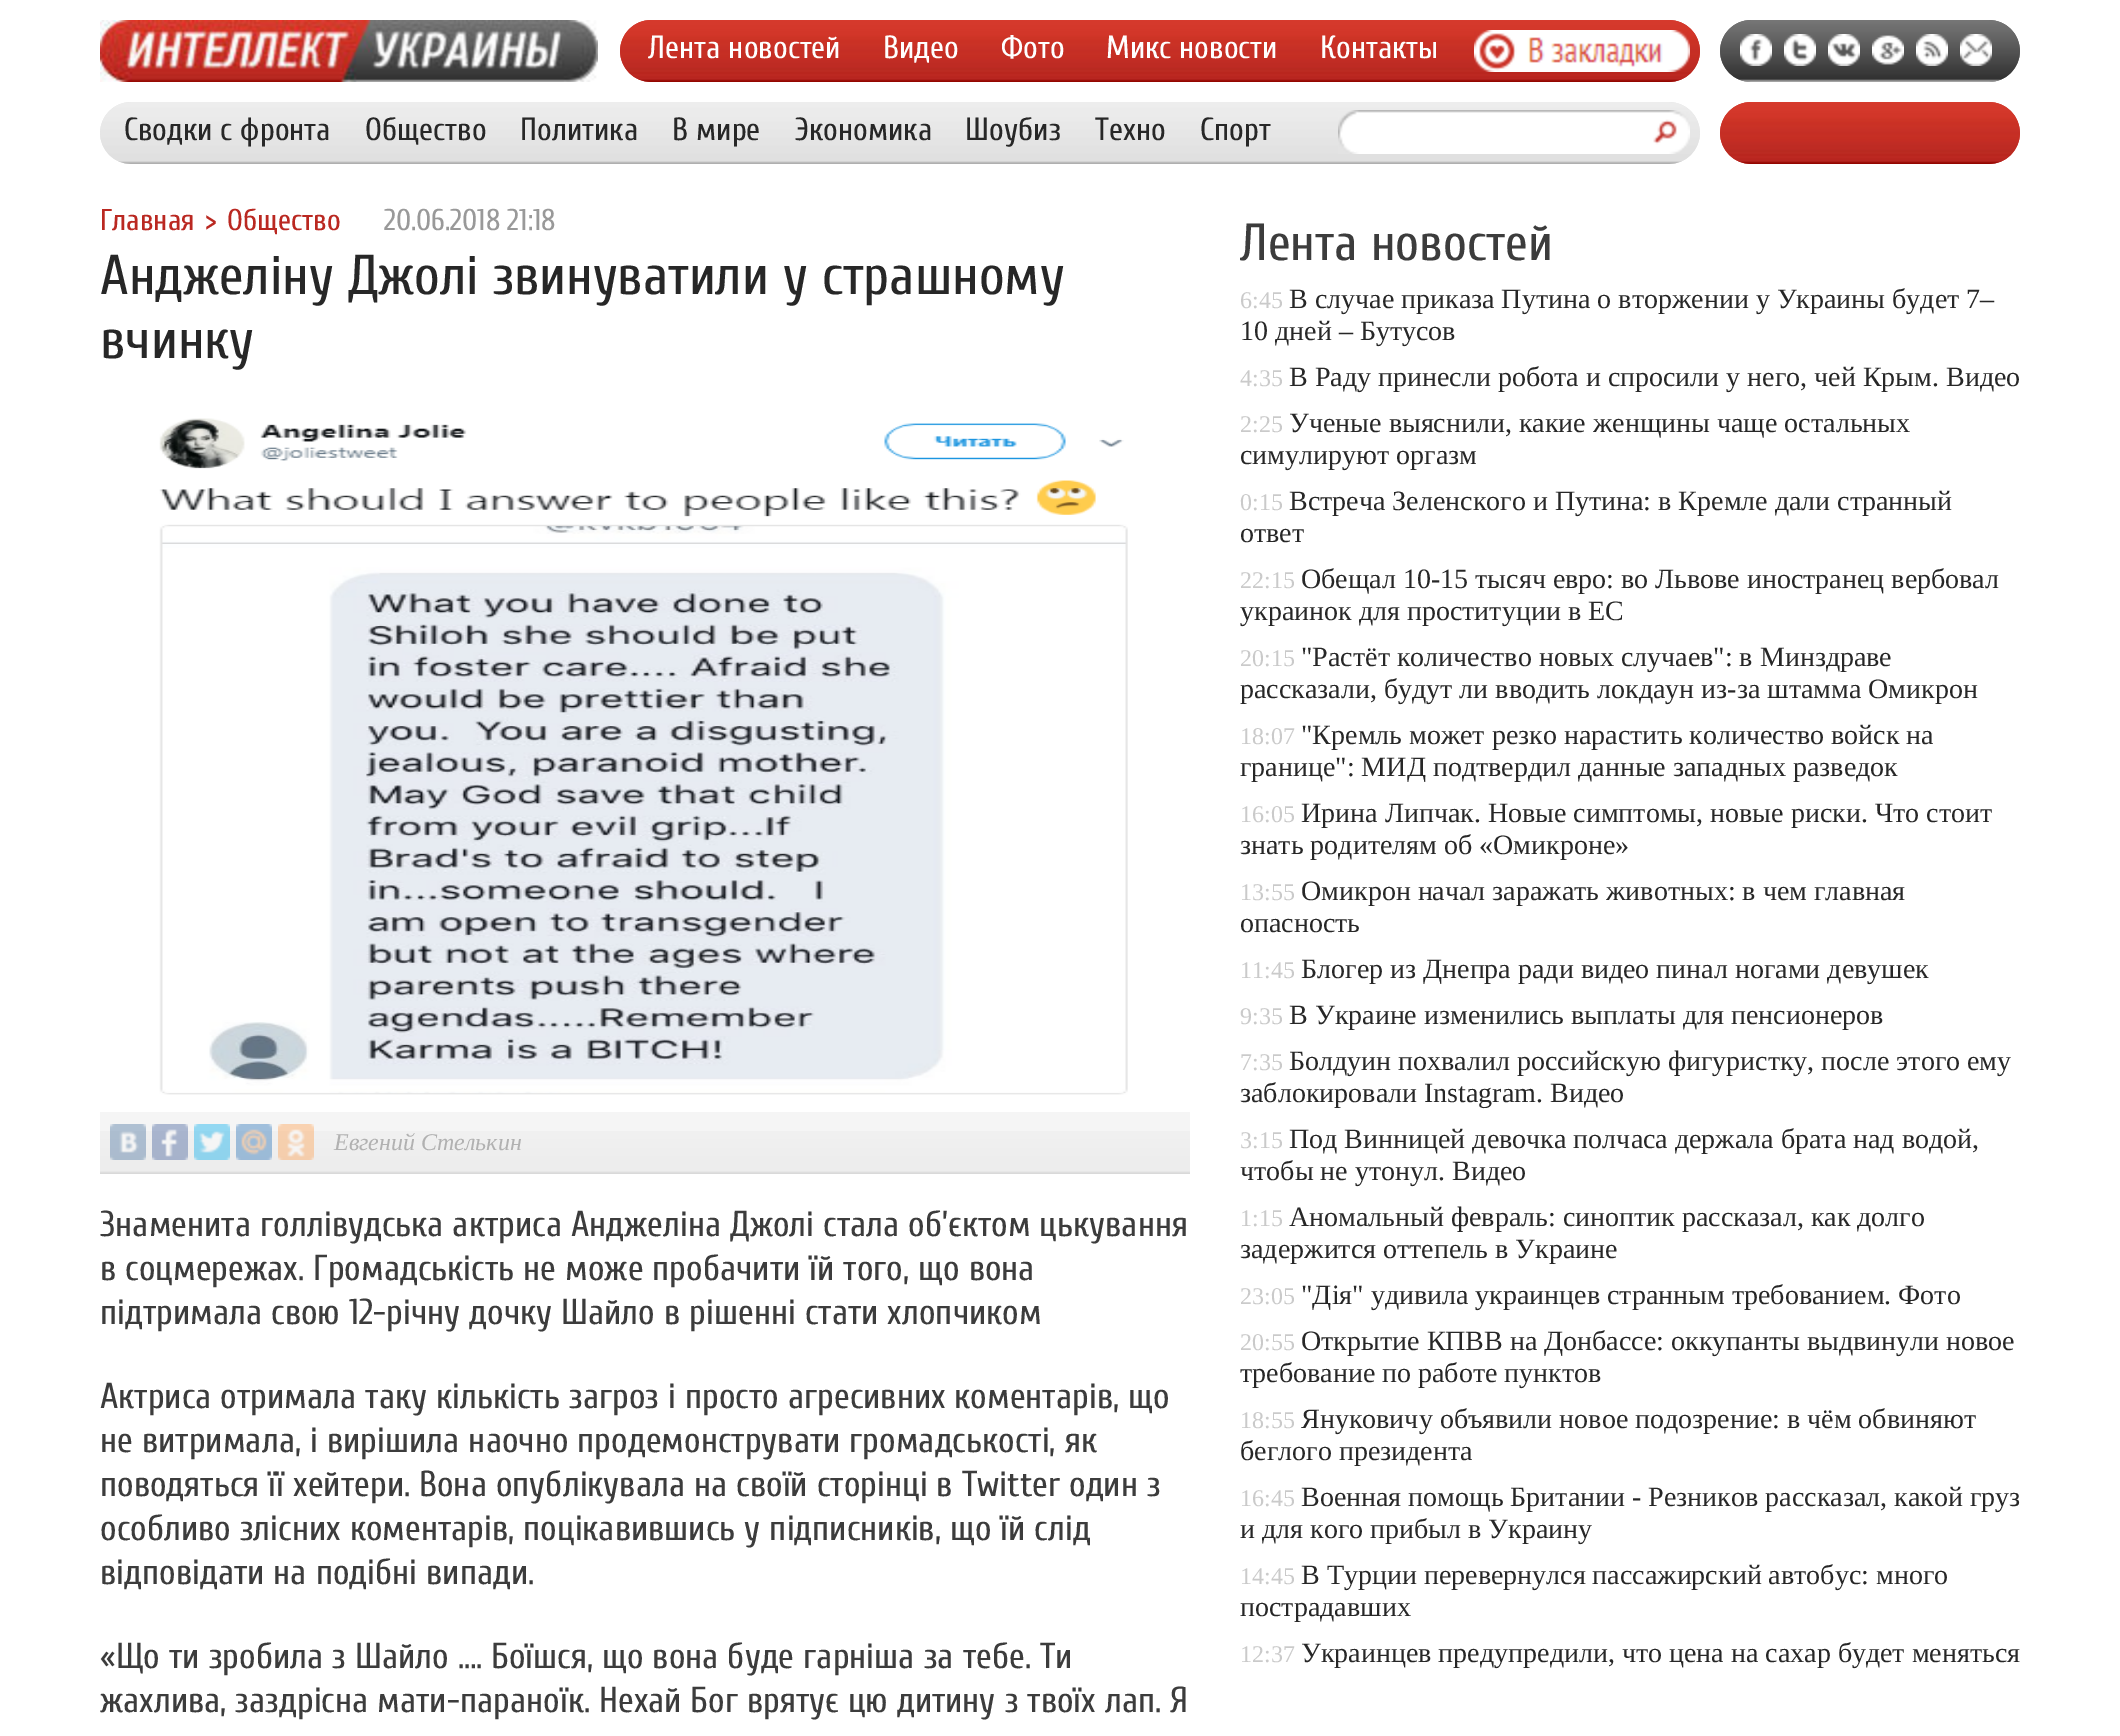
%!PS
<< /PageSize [2120 1736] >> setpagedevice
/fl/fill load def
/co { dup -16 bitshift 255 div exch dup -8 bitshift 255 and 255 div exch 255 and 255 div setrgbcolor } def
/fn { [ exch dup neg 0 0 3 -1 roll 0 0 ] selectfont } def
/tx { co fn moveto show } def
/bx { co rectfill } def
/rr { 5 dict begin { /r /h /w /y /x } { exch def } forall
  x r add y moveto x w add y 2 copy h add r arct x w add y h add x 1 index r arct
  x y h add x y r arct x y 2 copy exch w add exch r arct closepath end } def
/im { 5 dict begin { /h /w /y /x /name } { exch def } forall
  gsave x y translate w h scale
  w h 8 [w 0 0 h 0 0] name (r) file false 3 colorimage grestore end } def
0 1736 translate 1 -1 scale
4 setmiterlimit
0 0 2120 1736 16#FFFFFF bx
(media/1.raw) 100 20 498 62 im
16#C83127 co
620 20 1080 62 31 rr fl
(media/2.raw) 620 20 1080 62 im
(media/3.raw) 1474 30 216 42 im
16#5E5E5E co
1720 20 300 62 31 rr fl
(media/4.raw) 1720 20 300 62 im
(media/5.raw) 1740 34 32 32 im
(media/6.raw) 1784 34 32 32 im
(media/7.raw) 1828 34 32 32 im
(media/8.raw) 1872 35 32 30 im
(media/9.raw) 1916 34 32 32 im
(media/10.raw) 1960 34 32 32 im
16#E6E6E6 co
100 102 1600 62 31 rr fl
(media/11.raw) 100 102 1600 62 im
(media/12.raw) 1338 110 308 44 im
1354 151 2 1 16#FFFFFF bx
(media/13.raw) 1646 110 44 44 im
16#C83127 co
1720 102 300 62 31 rr fl
(media/14.raw) 1720 102 300 62 im
(media/15.raw) 159 418 969 677 im
100 1112 1090 62 16#F5F5F5 bx
(media/16.raw) 100 1131 1090 43 im
(media/17.raw) 110 1124 36 36 im
(media/18.raw) 152 1124 36 36 im
(media/19.raw) 194 1124 36 36 im
(media/20.raw) 236 1124 36 36 im
(media/21.raw) 278 1124 36 36 im
(Лента новостей) 648 58 /Cuprum-Regular 32 16#FFFFFF tx
(Видео) 883 58 /Cuprum-Regular 32 16#FFFFFF tx
(Фото) 1001 58 /Cuprum-Regular 32 16#FFFFFF tx
(Микс новости) 1106 58 /Cuprum-Regular 32 16#FFFFFF tx
(Контакты) 1320 58 /Cuprum-Regular 32 16#FFFFFF tx
(Сводки с фронта) 124 140 /Cuprum-Regular 32 16#272727 tx
(Общество) 365 140 /Cuprum-Regular 32 16#272727 tx
(Политика) 520 140 /Cuprum-Regular 32 16#272727 tx
(В мире) 672 140 /Cuprum-Regular 32 16#272727 tx
(Экономика) 795 140 /Cuprum-Regular 32 16#272727 tx
(Шоубиз) 965 140 /Cuprum-Regular 32 16#272727 tx
(Техно) 1095 140 /Cuprum-Regular 32 16#272727 tx
(Спорт) 1200 140 /Cuprum-Regular 32 16#272727 tx
(Главная) 100 230 /Cuprum-Regular 30 16#BA2821 tx
(>) 205 230 /Cuprum-Regular 30 16#BA2821 tx
(Общество) 227 230 /Cuprum-Regular 30 16#BA2821 tx
(20.06.2018 21:18) 384 230 /Cuprum-Regular 30 16#999999 tx
(Анджеліну Джолі звинуватили у страшному) 100 294 /Cuprum-Regular 56 16#272727 tx
(вчинку) 100 358 /Cuprum-Regular 56 16#272727 tx
(Евгений Стелькин) 334 1150 /LiberationSerif-Italic 24 16#B1B1B1 tx
(Знаменита голлівудська актриса Анджеліна Джолі стала об’єктом цькування) 100 1236 /Cuprum-Regular 36 16#3C3C3C tx
(в соцмережах. Громадськість не може пробачити їй того, що вона) 100 1280 /Cuprum-Regular 36 16#3C3C3C tx
(підтримала свою 12-річну дочку Шайло в рішенні стати хлопчиком) 100 1324 /Cuprum-Regular 36 16#3C3C3C tx
(Актриса отримала таку кількість загроз і просто агресивних коментарів, що) 100 1408 /Cuprum-Regular 36 16#3C3C3C tx
(не витримала, і вирішила наочно продемонструвати громадськості, як) 100 1452 /Cuprum-Regular 36 16#3C3C3C tx
(поводяться її хейтери. Вона опублікувала на своїй сторінці в Twitter один з) 100 1496 /Cuprum-Regular 36 16#3C3C3C tx
(особливо злісних коментарів, поцікавившись у підписників, що їй слід) 100 1540 /Cuprum-Regular 36 16#3C3C3C tx
(відповідати на подібні випади.) 100 1584 /Cuprum-Regular 36 16#3C3C3C tx
(«Що ти зробила з Шайло …. Боїшся, що вона буде гарніша за тебе. Ти) 100 1668 /Cuprum-Regular 36 16#3C3C3C tx
(жахлива, заздрісна мати-параноїк. Нехай Бог врятує цю дитину з твоїх лап. Я) 100 1712 /Cuprum-Regular 36 16#3C3C3C tx
(Лента новостей) 1240 260 /Cuprum-Regular 52 16#3C3C3C tx
(6:45) 1240 308 /LiberationSerif-Regular 24 16#CACACA tx
(В случае приказа Путина о вторжении у Украины будет 7–) 1289 308 /LiberationSerif-Regular 28 16#272727 tx
(10 дней – Бутусов) 1240 340 /LiberationSerif-Regular 28 16#272727 tx
(4:35) 1240 386 /LiberationSerif-Regular 24 16#CACACA tx
(В Раду принесли робота и спросили у него, чей Крым. Видео) 1289 386 /LiberationSerif-Regular 28 16#272727 tx
(2:25) 1240 432 /LiberationSerif-Regular 24 16#CACACA tx
(Ученые выяснили, какие женщины чаще остальных) 1289 432 /LiberationSerif-Regular 28 16#272727 tx
(симулируют оргазм) 1240 464 /LiberationSerif-Regular 28 16#272727 tx
(0:15) 1240 510 /LiberationSerif-Regular 24 16#CACACA tx
(Встреча Зеленского и Путина: в Кремле дали странный) 1289 510 /LiberationSerif-Regular 28 16#272727 tx
(ответ) 1240 542 /LiberationSerif-Regular 28 16#272727 tx
(22:15) 1240 588 /LiberationSerif-Regular 24 16#CACACA tx
(Обещал 10-15 тысяч евро: во Львове иностранец вербовал) 1301 588 /LiberationSerif-Regular 28 16#272727 tx
(украинок для проституции в ЕС) 1240 620 /LiberationSerif-Regular 28 16#272727 tx
(20:15) 1240 666 /LiberationSerif-Regular 24 16#CACACA tx
("Растёт количество новых случаев": в Минздраве) 1301 666 /LiberationSerif-Regular 28 16#272727 tx
(рассказали, будут ли вводить локдаун из-за штамма Омикрон) 1240 698 /LiberationSerif-Regular 28 16#272727 tx
(18:07) 1240 744 /LiberationSerif-Regular 24 16#CACACA tx
("Кремль может резко нарастить количество войск на) 1301 744 /LiberationSerif-Regular 28 16#272727 tx
(границе": МИД подтвердил данные западных разведок) 1240 776 /LiberationSerif-Regular 28 16#272727 tx
(16:05) 1240 822 /LiberationSerif-Regular 24 16#CACACA tx
(Ирина Липчак. Новые симптомы, новые риски. Что стоит) 1301 822 /LiberationSerif-Regular 28 16#272727 tx
(знать родителям об «Омикроне») 1240 854 /LiberationSerif-Regular 28 16#272727 tx
(13:55) 1240 900 /LiberationSerif-Regular 24 16#CACACA tx
(Омикрон начал заражать животных: в чем главная) 1301 900 /LiberationSerif-Regular 28 16#272727 tx
(опасность) 1240 932 /LiberationSerif-Regular 28 16#272727 tx
(11:45) 1240 978 /LiberationSerif-Regular 24 16#CACACA tx
(Блогер из Днепра ради видео пинал ногами девушек) 1301 978 /LiberationSerif-Regular 28 16#272727 tx
(9:35) 1240 1024 /LiberationSerif-Regular 24 16#CACACA tx
(В Украине изменились выплаты для пенсионеров) 1289 1024 /LiberationSerif-Regular 28 16#272727 tx
(7:35) 1240 1070 /LiberationSerif-Regular 24 16#CACACA tx
(Болдуин похвалил российскую фигуристку, после этого ему) 1289 1070 /LiberationSerif-Regular 28 16#272727 tx
(заблокировали Instagram. Видео) 1240 1102 /LiberationSerif-Regular 28 16#272727 tx
(3:15) 1240 1148 /LiberationSerif-Regular 24 16#CACACA tx
(Под Винницей девочка полчаса держала брата над водой,) 1289 1148 /LiberationSerif-Regular 28 16#272727 tx
(чтобы не утонул. Видео) 1240 1180 /LiberationSerif-Regular 28 16#272727 tx
(1:15) 1240 1226 /LiberationSerif-Regular 24 16#CACACA tx
(Аномальный февраль: синоптик рассказал, как долго) 1289 1226 /LiberationSerif-Regular 28 16#272727 tx
(задержится оттепель в Украине) 1240 1258 /LiberationSerif-Regular 28 16#272727 tx
(23:05) 1240 1304 /LiberationSerif-Regular 24 16#CACACA tx
("Дія" удивила украинцев странным требованием. Фото) 1301 1304 /LiberationSerif-Regular 28 16#272727 tx
(20:55) 1240 1350 /LiberationSerif-Regular 24 16#CACACA tx
(Открытие КПВВ на Донбассе: оккупанты выдвинули новое) 1301 1350 /LiberationSerif-Regular 28 16#272727 tx
(требование по работе пунктов) 1240 1382 /LiberationSerif-Regular 28 16#272727 tx
(18:55) 1240 1428 /LiberationSerif-Regular 24 16#CACACA tx
(Януковичу объявили новое подозрение: в чём обвиняют) 1301 1428 /LiberationSerif-Regular 28 16#272727 tx
(беглого президента) 1240 1460 /LiberationSerif-Regular 28 16#272727 tx
(16:45) 1240 1506 /LiberationSerif-Regular 24 16#CACACA tx
(Военная помощь Британии - Резников рассказал, какой груз) 1301 1506 /LiberationSerif-Regular 28 16#272727 tx
(и для кого прибыл в Украину) 1240 1538 /LiberationSerif-Regular 28 16#272727 tx
(14:45) 1240 1584 /LiberationSerif-Regular 24 16#CACACA tx
(В Турции перевернулся пассажирский автобус: много) 1301 1584 /LiberationSerif-Regular 28 16#272727 tx
(пострадавших) 1240 1616 /LiberationSerif-Regular 28 16#272727 tx
(12:37) 1240 1662 /LiberationSerif-Regular 24 16#CACACA tx
(Украинцев предупредили, что цена на сахар будет меняться) 1301 1662 /LiberationSerif-Regular 28 16#272727 tx
showpage
